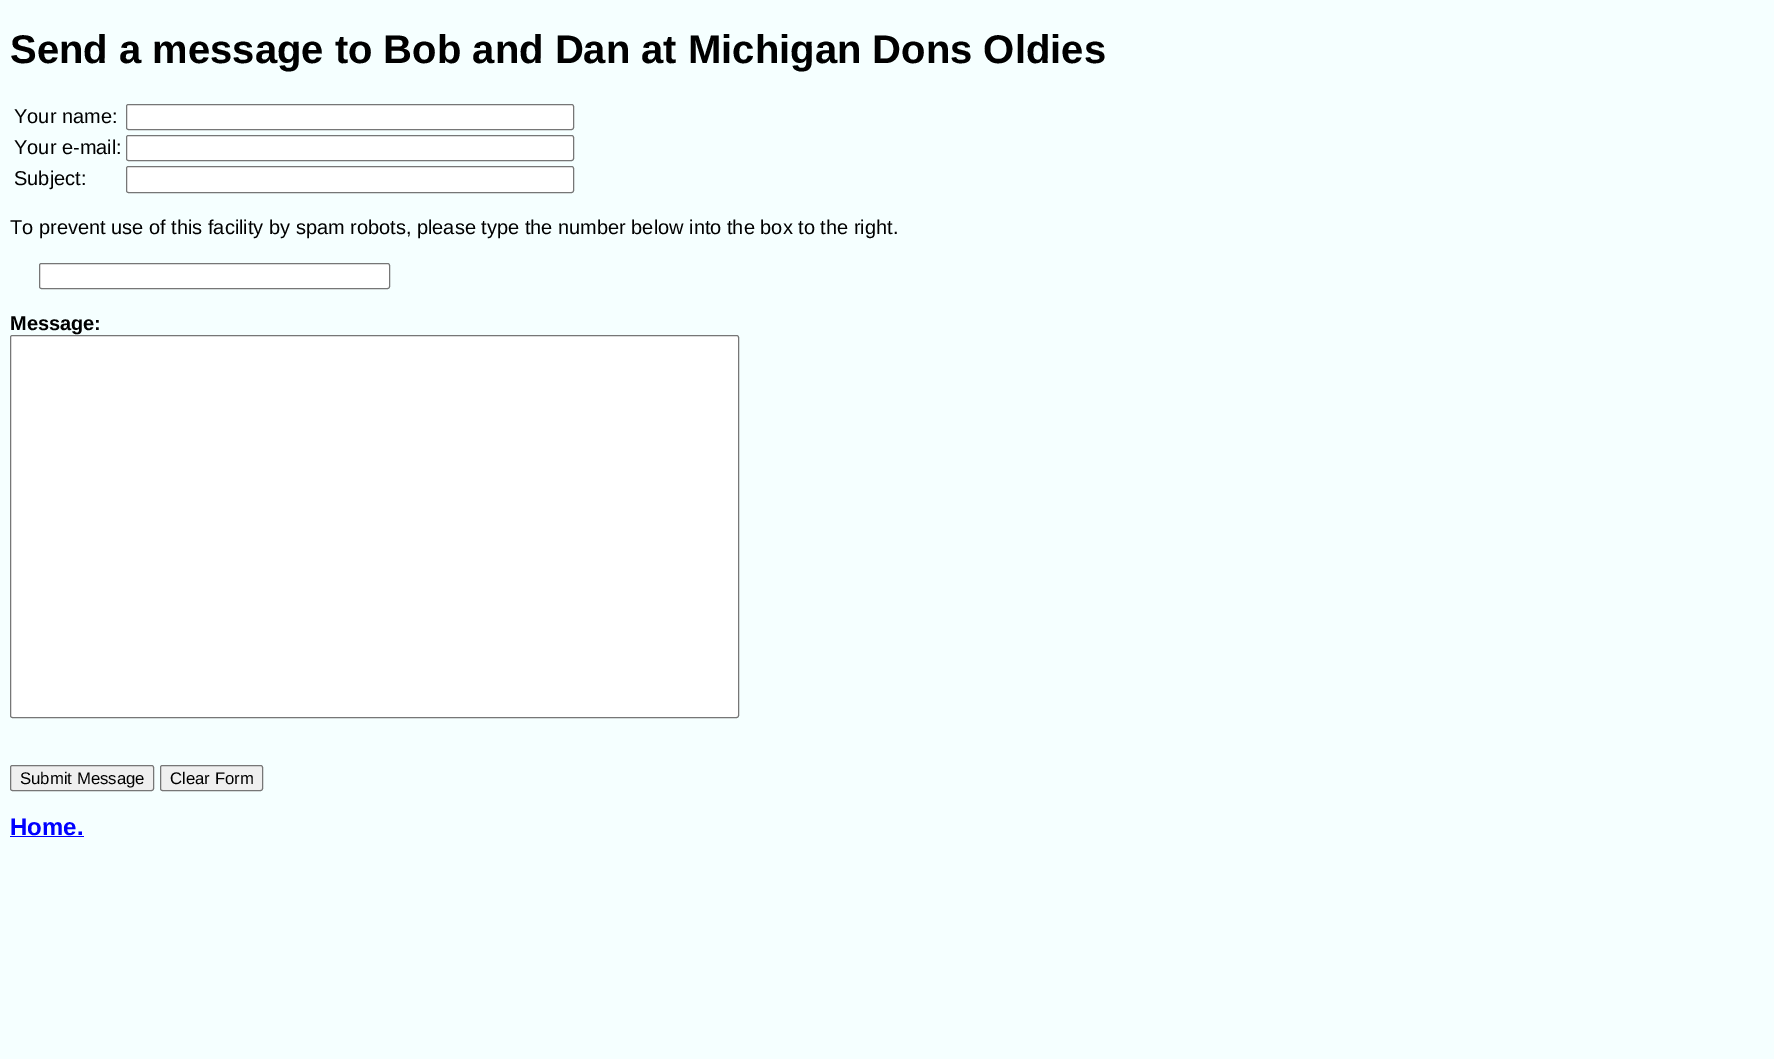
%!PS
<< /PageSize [1774 1059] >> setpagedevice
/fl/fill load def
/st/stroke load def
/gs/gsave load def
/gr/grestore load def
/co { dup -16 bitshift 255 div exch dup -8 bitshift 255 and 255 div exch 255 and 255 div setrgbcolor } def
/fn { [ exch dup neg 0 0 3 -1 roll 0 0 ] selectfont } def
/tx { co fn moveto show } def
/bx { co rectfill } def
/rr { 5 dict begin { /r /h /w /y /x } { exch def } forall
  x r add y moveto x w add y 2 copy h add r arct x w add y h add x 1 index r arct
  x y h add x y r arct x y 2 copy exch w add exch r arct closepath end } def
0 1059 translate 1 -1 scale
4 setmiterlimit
0 0 1774 1059 16#F5FFFF bx
16#FFFFFF co
126.5 104.5 447 25 2 rr gs fl gr
16#767676 co
st
16#FFFFFF co
126.5 135.5 447 25 2 rr gs fl gr
16#767676 co
st
16#FFFFFF co
126.5 166.5 447 26 2 rr gs fl gr
16#767676 co
st
16#FFFFFF co
39.5 263.5 350 25 2 rr gs fl gr
16#767676 co
st
16#FFFFFF co
10.5 335.5 728 382 2 rr gs fl gr
16#767676 co
st
16#EFEFEF co
10.5 765.5 143 25 2 rr gs fl gr
16#767676 co
st
16#EFEFEF co
160.5 765.5 102 25 2 rr gs fl gr
16#767676 co
st
10 836 74 1 16#0000FF bx
(Send a message to Bob and Dan at Michigan Dons Oldies) 10 63 /LiberationSans-Bold 40 16#000000 tx
(Your name:) 14 123 /LiberationSans-Regular 20 16#000000 tx
(Your e-mail:) 14 154 /LiberationSans-Regular 20 16#000000 tx
(Subject:) 14 185 /LiberationSans-Regular 20 16#000000 tx
(To prevent use of this facility by spam robots, please type the number below into the box to the right.) 10 234 /LiberationSans-Regular 20 16#000000 tx
(Message:) 10 330 /LiberationSans-Bold 20 16#000000 tx
(Submit Message) 20 784 /LiberationSans-Regular 16.75 16#000000 tx
(Clear Form) 170 784 /LiberationSans-Regular 16.75 16#000000 tx
(Home.) 10 835 /LiberationSans-Bold 24 16#0000FF tx
showpage
